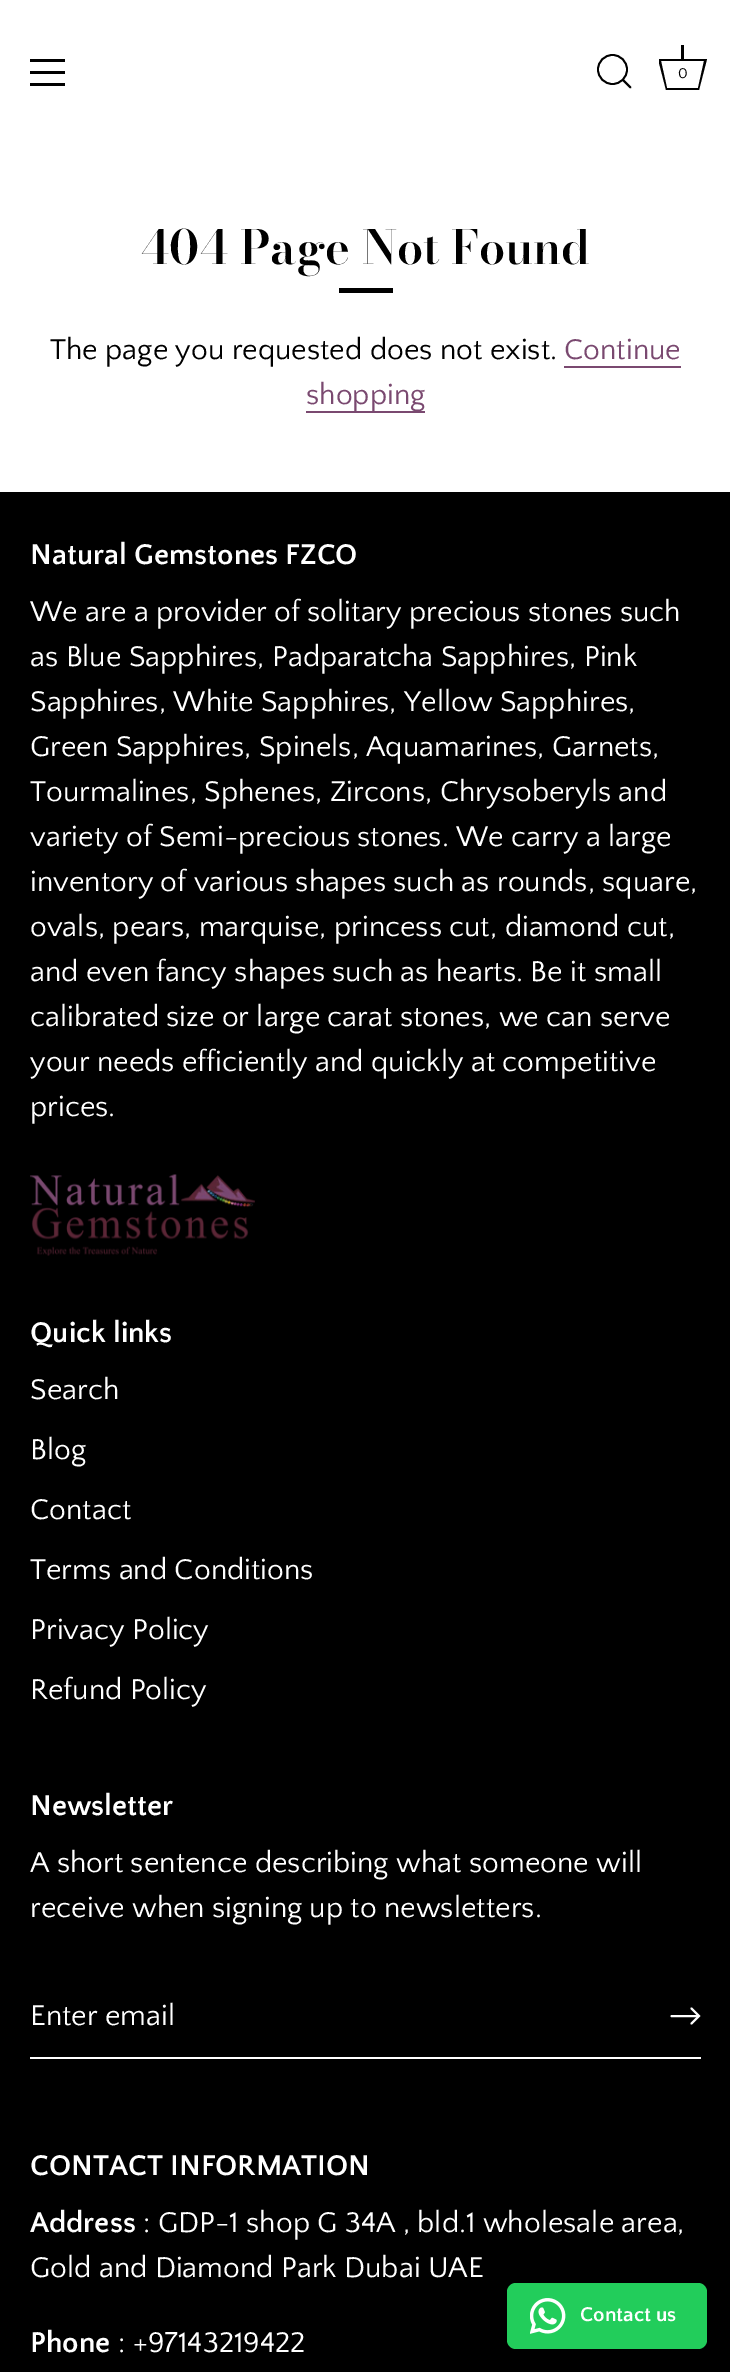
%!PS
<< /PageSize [730 2372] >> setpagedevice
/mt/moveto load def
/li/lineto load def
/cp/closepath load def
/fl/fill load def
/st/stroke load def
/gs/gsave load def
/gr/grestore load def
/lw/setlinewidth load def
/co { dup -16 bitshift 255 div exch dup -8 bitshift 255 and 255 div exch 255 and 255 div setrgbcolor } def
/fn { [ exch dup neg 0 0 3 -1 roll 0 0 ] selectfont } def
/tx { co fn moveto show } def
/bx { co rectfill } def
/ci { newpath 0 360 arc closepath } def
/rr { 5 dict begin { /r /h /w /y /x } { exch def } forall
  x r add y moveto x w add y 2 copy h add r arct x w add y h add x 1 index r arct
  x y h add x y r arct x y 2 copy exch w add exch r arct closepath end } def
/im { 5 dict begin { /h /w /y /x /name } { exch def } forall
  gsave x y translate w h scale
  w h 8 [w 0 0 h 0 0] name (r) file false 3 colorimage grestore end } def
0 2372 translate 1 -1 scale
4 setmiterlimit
0 0 730 2372 16#FFFFFF bx
30 59 35 3 16#000000 bx
30 71 35 3 16#000000 bx
30 83 35 3 16#000000 bx
1.8 lw
612.5 69.5 14.5 ci st
1 setlinecap
1 setlinejoin
630.5 87.5 mt 623 80 li st
681 45 3 14 16#000000 bx
gs
659 44 48 48 rectclip
704 61 mt 698 88 li 667 88 li 661 61 li 704 61 li 707 59 mt 658 59 li 666 90 li 699 90 li cp fl
gr
339 288 54 5 16#000000 bx
564 366 117 2 16#7A4970 bx
306 411 119 2 16#7A4970 bx
0 492 730 1880 16#000000 bx
(media/1.raw) 30 1174 225 82 im
30 2057 671 2 16#FFFFFF bx
1.9 lw
0 setlinejoin
691.5 2023.5 mt 699 2016 li 691.5 2008.5 li st
1 setlinejoin
698 2016 mt 671.5 2016 li st
16#22CD5B co
507 2283 200 66 9 rr fl
(media/2.raw) 530 2298 36 36 im
(0) 678 78 /QuattrocentoSans-Regular 15 16#000000 tx
(404 Page Not Found) 140 264 /BodoniModa-SemiBold 46.75 16#000000 tx
(The page you requested does not exist.) 50 359 /QuattrocentoSans-Regular 30 16#000000 tx
(Continue) 564 359 /QuattrocentoSans-Regular 30 16#7A4970 tx
(shopping) 306 404 /QuattrocentoSans-Regular 30 16#7A4970 tx
(Natural Gemstones FZCO) 30 564 /QuattrocentoSans-Bold 30 16#FFFFFF tx
(We are a provider of solitary precious stones such) 30 621 /QuattrocentoSans-Regular 30 16#FFFFFF tx
(as Blue Sapphires, Padparatcha Sapphires, Pink) 30 666 /QuattrocentoSans-Regular 30 16#FFFFFF tx
(Sapphires, White Sapphires, Yellow Sapphires,) 30 711 /QuattrocentoSans-Regular 30 16#FFFFFF tx
(Green Sapphires, Spinels, Aquamarines, Garnets,) 30 756 /QuattrocentoSans-Regular 30 16#FFFFFF tx
(Tourmalines, Sphenes, Zircons, Chrysoberyls and) 30 801 /QuattrocentoSans-Regular 30 16#FFFFFF tx
(variety of Semi-precious stones. We carry a large) 30 846 /QuattrocentoSans-Regular 30 16#FFFFFF tx
(inventory of various shapes such as rounds, square,) 30 891 /QuattrocentoSans-Regular 30 16#FFFFFF tx
(ovals, pears, marquise, princess cut, diamond cut,) 30 936 /QuattrocentoSans-Regular 30 16#FFFFFF tx
(and even fancy shapes such as hearts. Be it small) 30 981 /QuattrocentoSans-Regular 30 16#FFFFFF tx
(calibrated size or large carat stones, we can serve) 30 1026 /QuattrocentoSans-Regular 30 16#FFFFFF tx
(your needs efficiently and quickly at competitive) 30 1071 /QuattrocentoSans-Regular 30 16#FFFFFF tx
(prices.) 30 1116 /QuattrocentoSans-Regular 30 16#FFFFFF tx
(Quick links) 30 1342 /QuattrocentoSans-Bold 30 16#FFFFFF tx
(Search) 30 1399 /QuattrocentoSans-Regular 30 16#FFFFFF tx
(Blog) 30 1459 /QuattrocentoSans-Regular 30 16#FFFFFF tx
(Contact) 30 1519 /QuattrocentoSans-Regular 30 16#FFFFFF tx
(Terms and Conditions) 30 1579 /QuattrocentoSans-Regular 30 16#FFFFFF tx
(Privacy Policy) 30 1639 /QuattrocentoSans-Regular 30 16#FFFFFF tx
(Refund Policy) 30 1699 /QuattrocentoSans-Regular 30 16#FFFFFF tx
(Newsletter) 30 1815 /QuattrocentoSans-Bold 30 16#FFFFFF tx
(A short sentence describing what someone will) 30 1872 /QuattrocentoSans-Regular 30 16#FFFFFF tx
(receive when signing up to newsletters.) 30 1917 /QuattrocentoSans-Regular 30 16#FFFFFF tx
(Enter email) 30 2025 /QuattrocentoSans-Regular 30 16#FFFFFF tx
(CONTACT INFORMATION) 30 2175 /QuattrocentoSans-Bold 30 16#FFFFFF tx
(Address) 30 2232 /QuattrocentoSans-Bold 30 16#FFFFFF tx
(: GDP-1 shop G 34A , bld.1 wholesale area,) 143 2232 /QuattrocentoSans-Regular 30 16#FFFFFF tx
(Gold and Diamond Park Dubai UAE) 30 2277 /QuattrocentoSans-Regular 30 16#FFFFFF tx
(Phone) 30 2352 /QuattrocentoSans-Bold 30 16#FFFFFF tx
(: +97143219422) 118 2352 /QuattrocentoSans-Regular 30 16#FFFFFF tx
(Contact us) 580 2321 /QuattrocentoSans-Bold 21 16#FFFFFF tx
showpage
